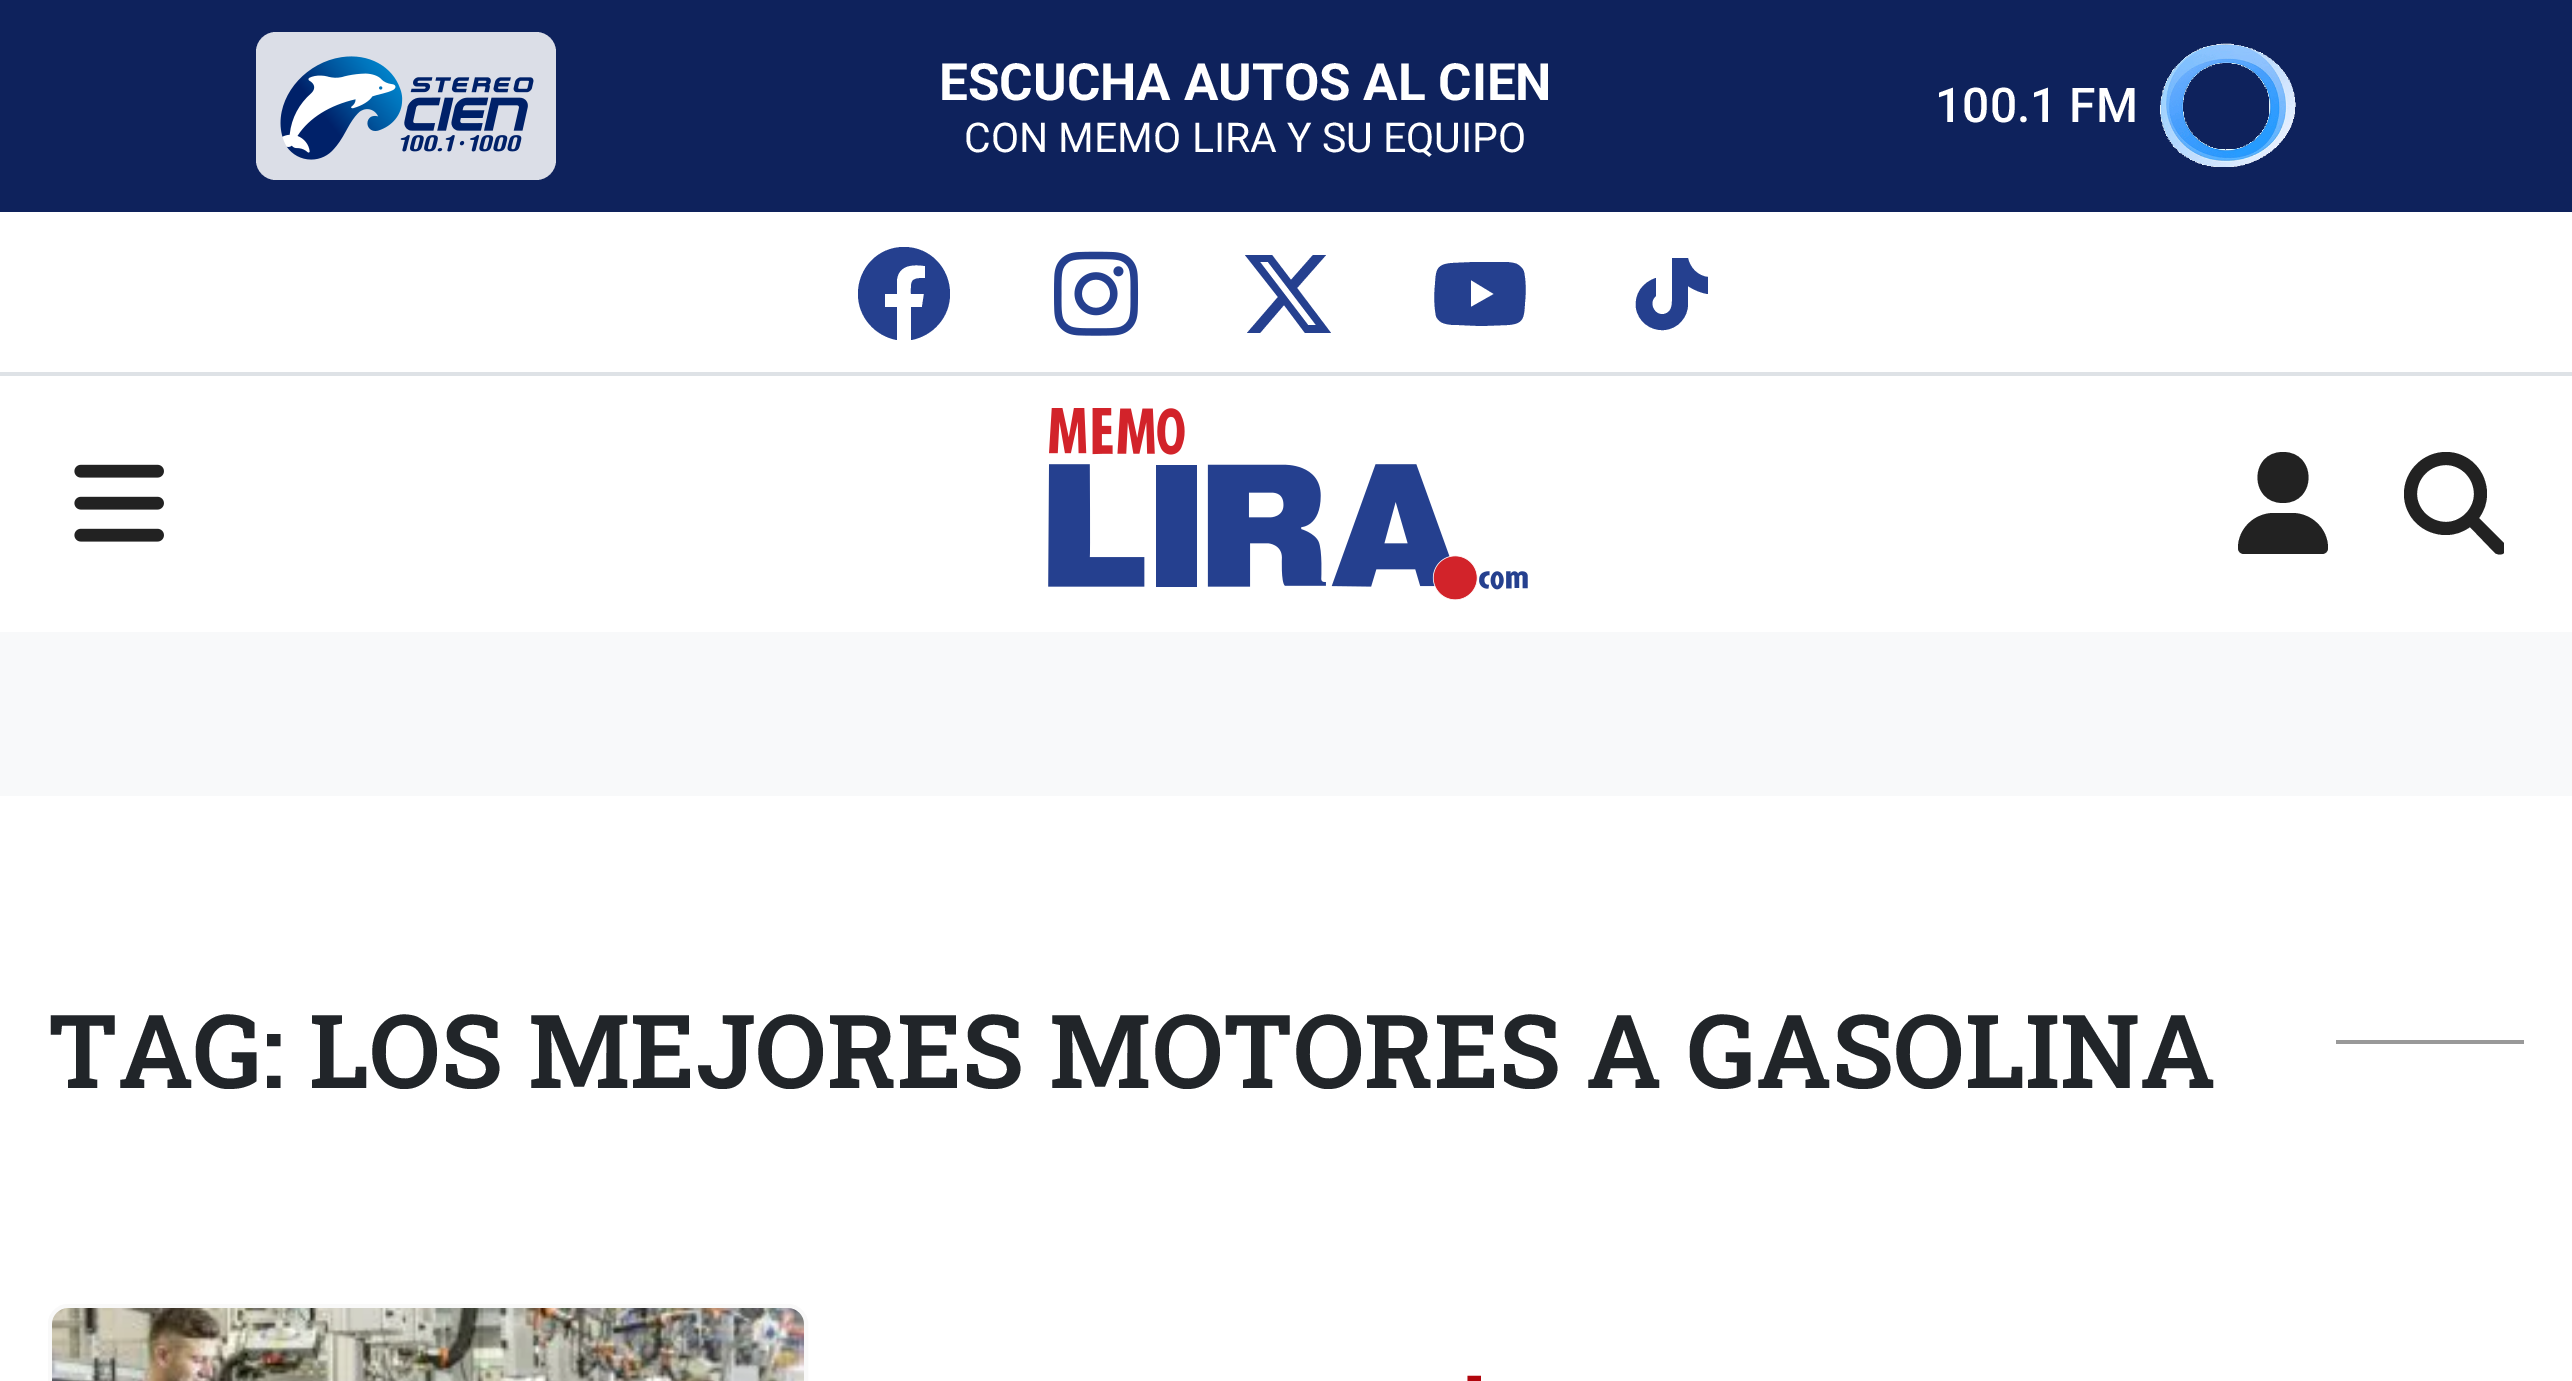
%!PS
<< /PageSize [2572 1381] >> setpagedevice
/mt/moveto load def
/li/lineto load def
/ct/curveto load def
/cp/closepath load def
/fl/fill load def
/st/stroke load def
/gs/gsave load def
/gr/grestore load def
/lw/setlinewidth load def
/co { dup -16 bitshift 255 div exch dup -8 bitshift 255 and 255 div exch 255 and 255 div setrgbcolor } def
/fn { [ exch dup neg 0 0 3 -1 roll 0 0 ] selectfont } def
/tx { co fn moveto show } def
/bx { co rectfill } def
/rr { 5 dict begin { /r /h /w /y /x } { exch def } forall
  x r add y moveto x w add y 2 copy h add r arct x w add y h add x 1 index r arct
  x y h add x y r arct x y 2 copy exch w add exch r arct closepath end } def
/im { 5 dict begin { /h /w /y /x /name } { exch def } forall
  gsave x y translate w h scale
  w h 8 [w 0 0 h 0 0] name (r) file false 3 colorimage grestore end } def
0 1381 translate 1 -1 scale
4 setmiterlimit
0 0 2572 1381 16#FFFFFF bx
0 0 2572 212 16#0E225C bx
16#DBDEE7 co
256 32 300 148 20 rr fl
(media/1.raw) 280 56 254 104 im
(media/2.raw) 2160 43 136 124 im
0 372 2572 4 16#DEE2E6 bx
16#25408F co
950 294 mt 950 268 930 247 904 247 ct 878 247 858 268 858 294 ct 858 317 875 336 897 340 ct 897 307 li 885 307 li 885 294 li 897 294 li 897 279 li 899 265 913 264 925 266 ct 925 278 li 910 278 911 281 911 294 ct 924 294 li 922 307 li 911 307 li 911 340 li 933 336 950 317 950 294 ct cp fl
(media/3.raw) 1054 251 85 85 im
1313 255 mt 1326 255 li 1297 288 li 1331 333 li 1305 333 li 1284 305 li 1260 333 li 1247 333 li 1278 297 li 1245 255 li 1272 255 li 1291 280 li cp 1308 325 mt 1316 325 li 1268 262 li 1260 262 li cp fl
1524 272 mt 1523 268 1520 266 1517 264 ct 1512 262 1506 262 1501 262 ct 1475 262 li 1453 263 li 1436 264 1436 270 1435 285 ct 1434 295 1434 306 1436 316 ct 1437 319 1440 322 1443 323 ct 1448 325 1454 325 1459 325 ct 1481 326 li 1507 325 li 1524 324 1524 318 1525 302 ct 1526 292 1526 281 1524 272 ct cp 1471 307 mt 1471 280 li 1494 294 li cp fl
1708 277 mt 1708 294 li 1701 293 1694 290 1688 286 ct 1688 304 li 1688 317 1678 329 1664 330 ct 1650 331 1638 321 1636 308 ct 1634 294 1643 282 1656 278 ct 1656 296 li 1648 302 1654 316 1664 314 ct 1673 312 1672 303 1672 296 ct 1672 258 li 1688 258 li 1690 268 1698 276 1708 277 ct cp fl
(media/4.raw) 74 464 90 78 im
(media/5.raw) 1048 408 480 192 im
16#222222 co
2283 503 mt 2317 503 2317 452 2283 452 ct 2249 452 2249 503 2283 503 ct cp 2274 513 mt 2254 513 2238 529 2238 548 ct 2238 552 2241 554 2244 554 ct 2322 554 li 2325 554 2328 552 2328 548 ct 2328 529 2312 513 2292 513 ct cp fl
gs
2404 452 100 104 rectclip
2487 494 mt 2487 503 2484 511 2479 518 ct 2504 543 li 2507 546 2507 550 2504 553 ct 2502 555 2498 555 2495 553 ct 2470 527 li 2463 532 2455 535 2446 535 ct 2423 535 2404 517 2404 494 ct 2404 471 2423 452 2446 452 ct 2469 452 2487 471 2487 494 ct cp 2446 522 mt 2461 522 2474 509 2474 494 ct 2474 478 2461 465 2446 465 ct 2430 465 2417 478 2417 494 ct 2417 509 2430 522 2446 522 ct cp fl
gr
0 632 2572 164 16#F8F9FA bx
2336 1040 188 4 16#999999 bx
16#F9F9F9 co
4 lw
50 1306 756 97 18 rr st
(media/6.raw) 52 1308 752 73 im
(ESCUCHA AUTOS AL CIEN) 939 100 /Roboto-Bold 51.25 16#FFFFFF tx
(CON MEMO LIRA Y SU EQUIPO) 964 152 /Roboto-Regular 41 16#FFFFFF tx
(100.1 FM) 1935 122 /Roboto-Medium 48 16#FFFFFF tx
(TAG: LOS MEJORES MOTORES A GASOLINA) 48 1088 /RobotoSlab-SemiBold 102.4 16#212529 tx
(-) 1464 1394 /RobotoSlab-SemiBold 51.25 16#B1060D tx
showpage
